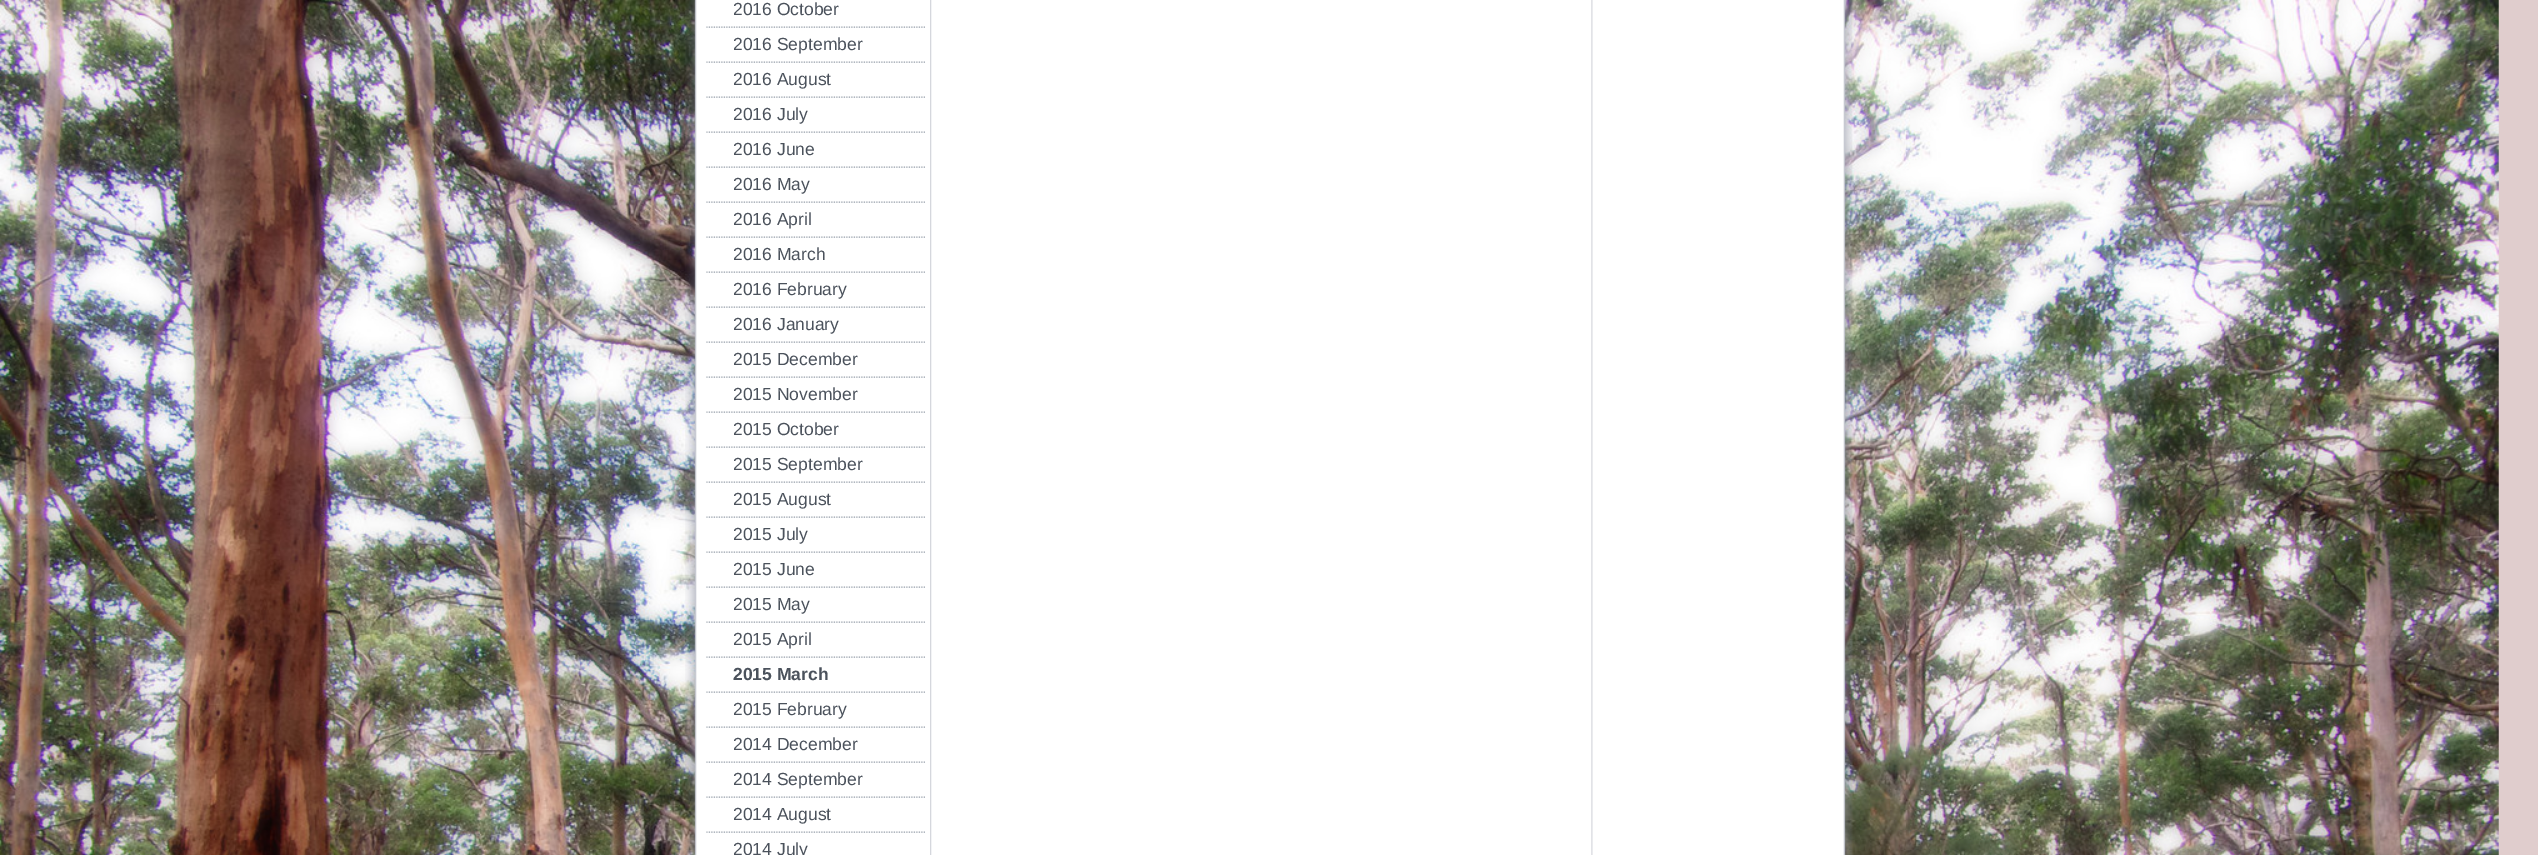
%!PS
<< /PageSize [2538 855] >> setpagedevice
/co { dup -16 bitshift 255 div exch dup -8 bitshift 255 and 255 div exch 255 and 255 div setrgbcolor } def
/fn { [ exch dup neg 0 0 3 -1 roll 0 0 ] selectfont } def
/tx { co fn moveto show } def
/bx { co rectfill } def
/im { 5 dict begin { /h /w /y /x /name } { exch def } forall
  gsave x y translate w h scale
  w h 8 [w 0 0 h 0 0] name (r) file false 3 colorimage grestore end } def
0 855 translate 1 -1 scale
4 setmiterlimit
0 0 2538 855 16#E0CDCD bx
(media/1.raw) 0 0 2499 855 im
(media/2.raw) 685 0 1168 855 im
(media/3.raw) 930 0 663 855 im
(media/4.raw) 706 26 219 2 im
(media/4.raw) 706 61 219 2 im
(media/4.raw) 706 96 219 2 im
(media/4.raw) 706 131 219 2 im
(media/4.raw) 706 166 219 2 im
(media/4.raw) 706 201 219 2 im
(media/4.raw) 706 236 219 2 im
(media/4.raw) 706 271 219 2 im
(media/4.raw) 706 306 219 2 im
(media/4.raw) 706 341 219 2 im
(media/4.raw) 706 376 219 2 im
(media/4.raw) 706 411 219 2 im
(media/4.raw) 706 446 219 2 im
(media/4.raw) 706 481 219 2 im
(media/4.raw) 706 516 219 2 im
(media/4.raw) 706 551 219 2 im
(media/4.raw) 706 586 219 2 im
(media/4.raw) 706 621 219 2 im
(media/4.raw) 706 656 219 2 im
(media/4.raw) 706 691 219 2 im
(media/4.raw) 706 726 219 2 im
(media/4.raw) 706 761 219 2 im
(media/4.raw) 706 796 219 2 im
(media/4.raw) 706 831 219 2 im
(2016 October) 733 15 /LiberationSans-Regular 17.5 16#4B525C tx
(2016 September) 733 50 /LiberationSans-Regular 17.5 16#4B525C tx
(2016 August) 733 85 /LiberationSans-Regular 17.5 16#4B525C tx
(2016 July) 733 120 /LiberationSans-Regular 17.5 16#4B525C tx
(2016 June) 733 155 /LiberationSans-Regular 17.5 16#4B525C tx
(2016 May) 733 190 /LiberationSans-Regular 17.5 16#4B525C tx
(2016 April) 733 225 /LiberationSans-Regular 17.5 16#4B525C tx
(2016 March) 733 260 /LiberationSans-Regular 17.5 16#4B525C tx
(2016 February) 733 295 /LiberationSans-Regular 17.5 16#4B525C tx
(2016 January) 733 330 /LiberationSans-Regular 17.5 16#4B525C tx
(2015 December) 733 365 /LiberationSans-Regular 17.5 16#4B525C tx
(2015 November) 733 400 /LiberationSans-Regular 17.5 16#4B525C tx
(2015 October) 733 435 /LiberationSans-Regular 17.5 16#4B525C tx
(2015 September) 733 470 /LiberationSans-Regular 17.5 16#4B525C tx
(2015 August) 733 505 /LiberationSans-Regular 17.5 16#4B525C tx
(2015 July) 733 540 /LiberationSans-Regular 17.5 16#4B525C tx
(2015 June) 733 575 /LiberationSans-Regular 17.5 16#4B525C tx
(2015 May) 733 610 /LiberationSans-Regular 17.5 16#4B525C tx
(2015 April) 733 645 /LiberationSans-Regular 17.5 16#4B525C tx
(2015 March) 733 680 /LiberationSans-Bold 17.5 16#4B525C tx
(2015 February) 733 715 /LiberationSans-Regular 17.5 16#4B525C tx
(2014 December) 733 750 /LiberationSans-Regular 17.5 16#4B525C tx
(2014 September) 733 785 /LiberationSans-Regular 17.5 16#4B525C tx
(2014 August) 733 820 /LiberationSans-Regular 17.5 16#4B525C tx
(2014 July) 733 855 /LiberationSans-Regular 17.5 16#4B525C tx
showpage
